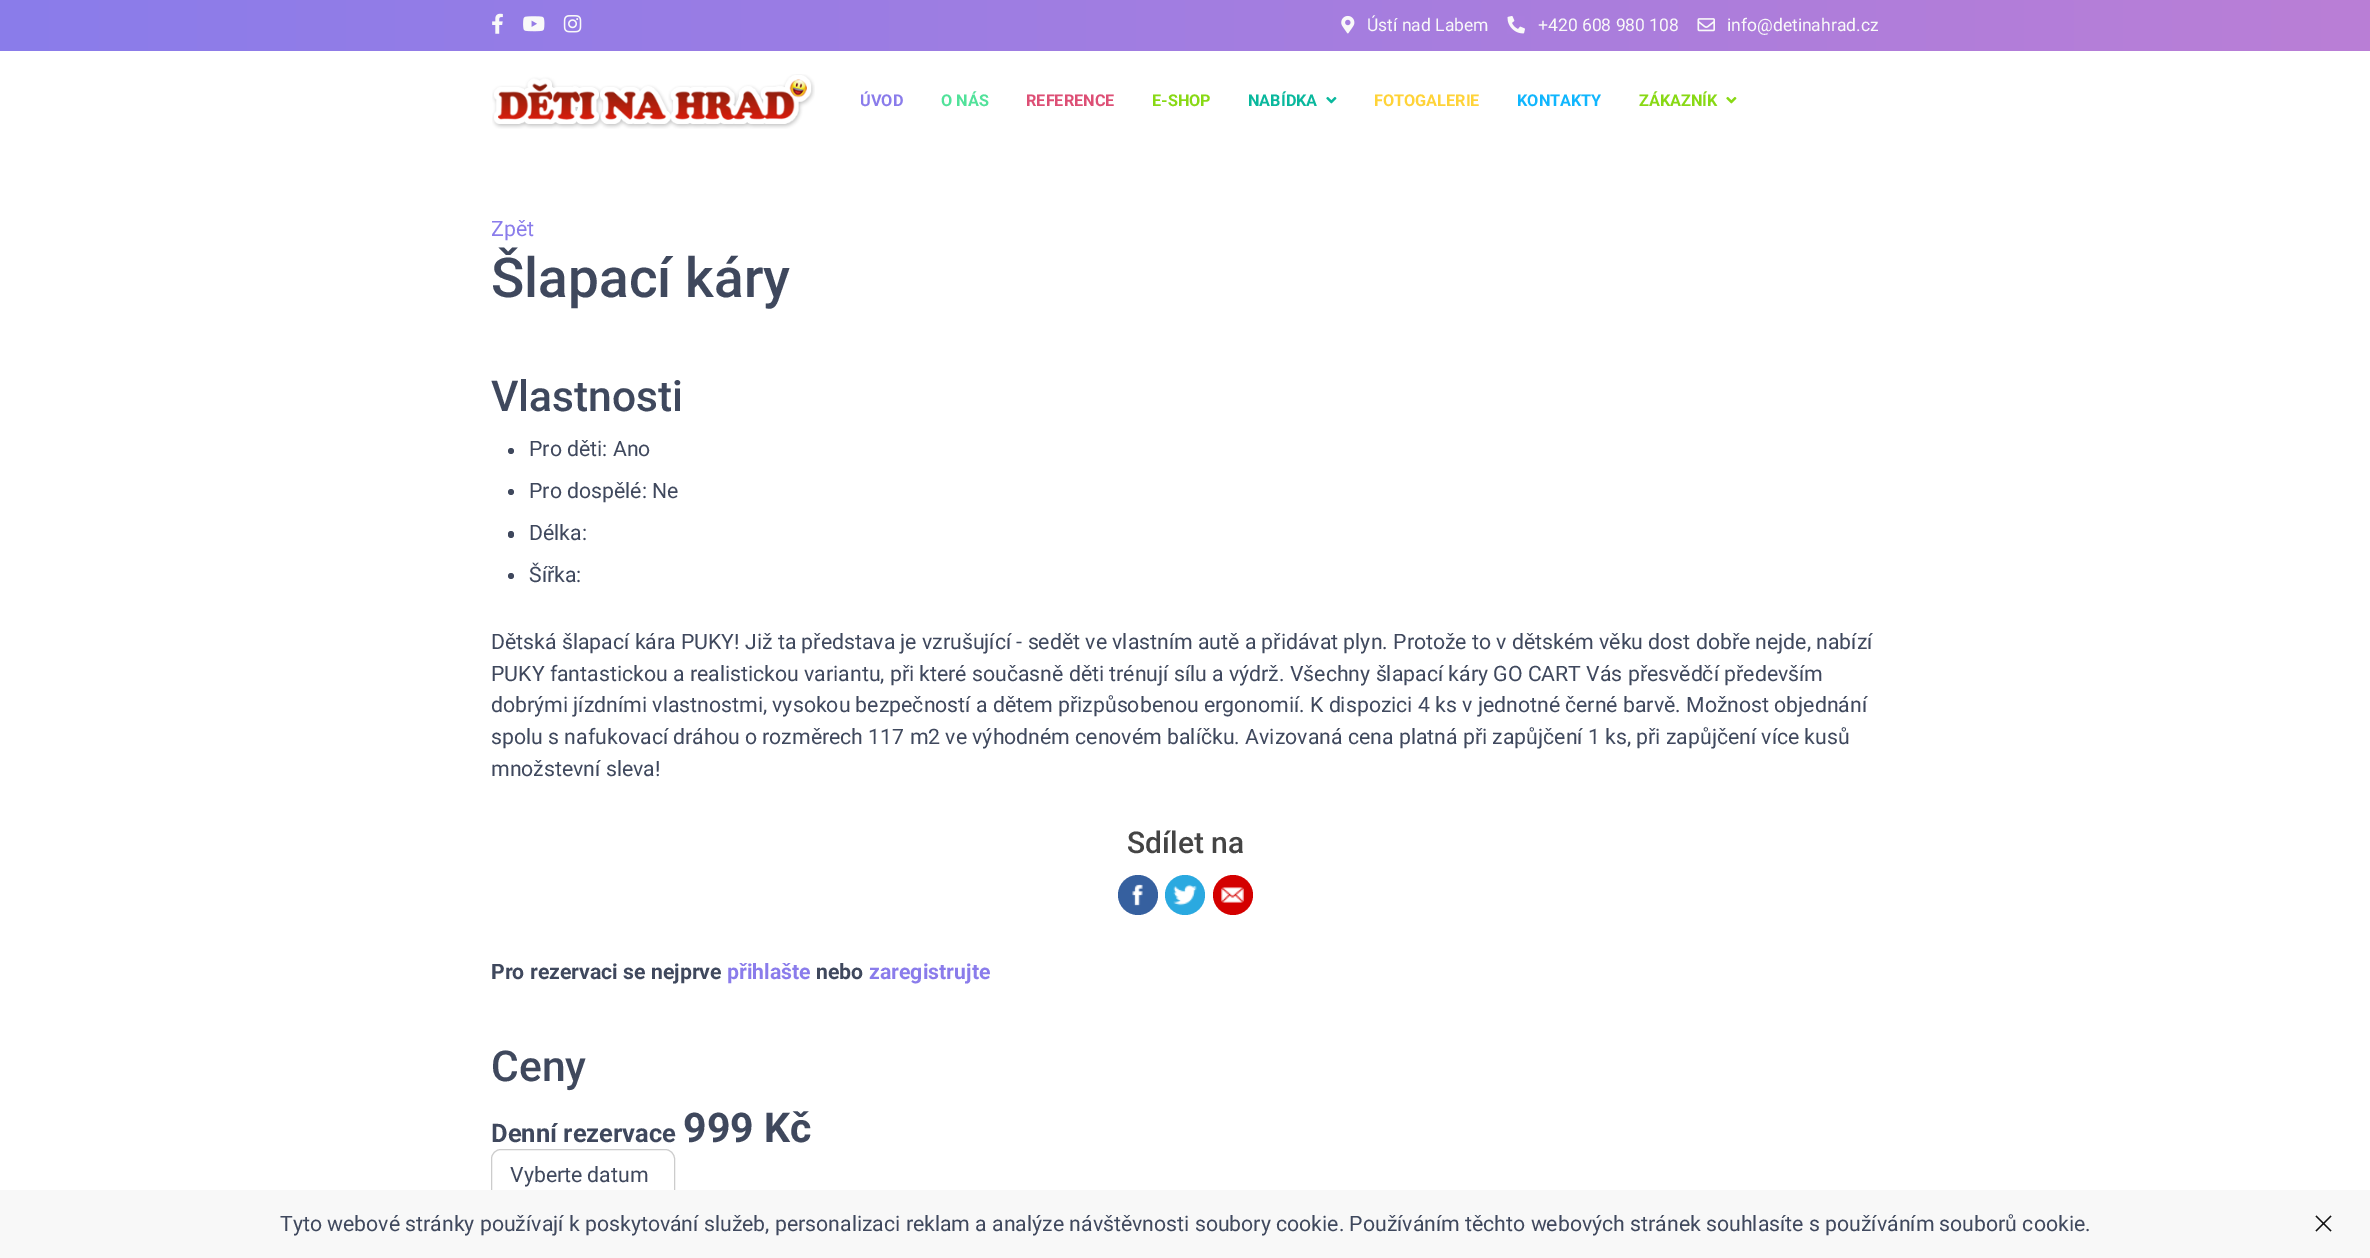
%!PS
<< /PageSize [2370 1258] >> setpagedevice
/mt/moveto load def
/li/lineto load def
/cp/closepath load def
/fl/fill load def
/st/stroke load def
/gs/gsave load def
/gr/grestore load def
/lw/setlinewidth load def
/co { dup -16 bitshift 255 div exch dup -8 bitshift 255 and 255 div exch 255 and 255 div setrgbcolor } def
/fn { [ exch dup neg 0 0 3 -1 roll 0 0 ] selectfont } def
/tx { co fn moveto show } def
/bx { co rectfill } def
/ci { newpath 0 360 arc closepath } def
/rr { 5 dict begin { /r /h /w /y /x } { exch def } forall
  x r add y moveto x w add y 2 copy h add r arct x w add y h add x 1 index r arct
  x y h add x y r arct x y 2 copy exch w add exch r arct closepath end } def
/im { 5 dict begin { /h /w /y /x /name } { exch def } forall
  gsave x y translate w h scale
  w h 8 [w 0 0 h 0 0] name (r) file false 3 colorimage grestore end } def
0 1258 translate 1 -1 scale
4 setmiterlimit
0 0 2370 1258 16#FFFFFF bx
gs 0 0 mt 2370 0 li 2370 51 li 0 51 li cp clip newpath
<< /ShadingType 2 /ColorSpace /DeviceRGB /Coords [0 26 2370 26] /Extend [true true] /Function << /FunctionType 2 /Domain [0 1] /C0 [.541 .486 .922] /C1 [.729 .494 .839] /N 1 >> >> shfill gr
(media/1.raw) 492 13 11 21 im
(media/2.raw) 523 16 22 16 im
(media/3.raw) 563 15 19 18 im
(media/4.raw) 1341 15 14 19 im
(media/5.raw) 1507 16 18 18 im
(media/6.raw) 1697 18 18 14 im
(media/7.raw) 492 74 323 55 im
(media/8.raw) 1326 96 11 8 im
(media/9.raw) 1726 96 11 8 im
16#3F485D co
511 451 3 ci fl
511 492 3 ci fl
508 531 6 7 3 rr fl
511 576 3 ci fl
16#36609F co
1138 895 20 ci fl
(media/10.raw) 1132 884 11 22 im
16#2AA9E0 co
1185 895 20 ci fl
(media/11.raw) 1173 884 24 22 im
16#D40000 co
1233 895 20 ci fl
(media/12.raw) 1221 887 23 16 im
16#CCCCCC co
491.5 1149.5 183 51 9.5 rr st
0 1190 2370 68 16#F8F8F8 bx
16#111111 co
1.4 lw
2316 1216 mt 2331 1231 li 2331 1216 mt 2316 1231 li st
(Ústí nad Labem) 1367 31 /Roboto-Regular 17.5 16#F9F9F9 tx
(+420 608 980 108) 1538 31 /Roboto-Regular 17.5 16#F9F9F9 tx
(info@detinahrad.cz) 1727 31 /Roboto-Regular 17.5 16#F9F9F9 tx
(ÚVOD) 860 106 /Roboto-Bold 16.25 16#8A7CEB tx
(O NÁS) 941 106 /Roboto-Bold 16.25 16#51E29A tx
(REFERENCE) 1026 106 /Roboto-Bold 16.25 16#DD4F75 tx
(E-SHOP) 1152 106 /Roboto-Bold 16.25 16#88D914 tx
(NABÍDKA) 1248 106 /Roboto-Bold 16.25 16#09B89D tx
(FOTOGALERIE) 1374 106 /Roboto-Bold 16.25 16#FFD338 tx
(KONTAKTY) 1517 106 /Roboto-Bold 16.25 16#10B6FE tx
(ZÁKAZNÍK) 1639 106 /Roboto-Bold 16.25 16#88D914 tx
(Zpět) 491 236 /Roboto-Regular 21.25 16#8A7CEB tx
(Šlapací káry) 491 297 /Roboto-Medium 55 16#3F485D tx
(Vlastnosti) 491 411 /Roboto-Medium 42.5 16#3F485D tx
(Pro děti: Ano) 529 456 /Roboto-Regular 21.25 16#3F485D tx
(Pro dospělé: Ne) 529 498 /Roboto-Regular 21.25 16#3F485D tx
(Délka:) 529 540 /Roboto-Regular 21.25 16#3F485D tx
(Šířka:) 529 582 /Roboto-Regular 21.25 16#3F485D tx
(Dětská šlapací kára PUKY! Již ta představa je vzrušující - sedět ve vlastním autě a přidávat plyn. Protože to v dětském věku dost dobře nejde, nabízí) 491 649 /Roboto-Regular 21.25 16#3F485D tx
(PUKY fantastickou a realistickou variantu, při které současně děti trénují sílu a výdrž. Všechny šlapací káry GO CART Vás přesvědčí především) 491 681 /Roboto-Regular 21.25 16#3F485D tx
(dobrými jízdními vlastnostmi, vysokou bezpečností a dětem přizpůsobenou ergonomií. K dispozici 4 ks v jednotné černé barvě. Možnost objednání) 491 712 /Roboto-Regular 21.25 16#3F485D tx
(spolu s nafukovací dráhou o rozměrech 117 m2 ve výhodném cenovém balíčku. Avizovaná cena platná při zapůjčení 1 ks, při zapůjčení více kusů) 491 744 /Roboto-Regular 21.25 16#3F485D tx
(množstevní sleva!) 491 776 /Roboto-Regular 21.25 16#3F485D tx
(Sdílet na) 1127 853 /Roboto-Medium 30 16#444444 tx
(Pro rezervaci se nejprve) 491 979 /Roboto-Bold 21.25 16#3F485D tx
(přihlašte) 727 979 /Roboto-Bold 21.25 16#8A7CEB tx
(nebo) 816 979 /Roboto-Bold 21.25 16#3F485D tx
(zaregistrujte) 869 979 /Roboto-Bold 21.25 16#8A7CEB tx
(Ceny) 491 1081 /Roboto-Medium 42.5 16#3F485D tx
(Denní rezervace) 491 1142 /Roboto-Bold 25.5 16#3F485D tx
(999 Kč) 683 1142 /Roboto-Bold 41 16#3F485D tx
(Vyberte datum) 510 1182 /Roboto-Regular 21.25 16#3F485D tx
(Tyto webové stránky používají k poskytování služeb, personalizaci reklam a analýze návštěvnosti soubory cookie. Používáním těchto webových stránek souhlasíte s používáním souborů cookie.) 280 1231 /Roboto-Regular 21.25 16#3F485D tx
showpage
